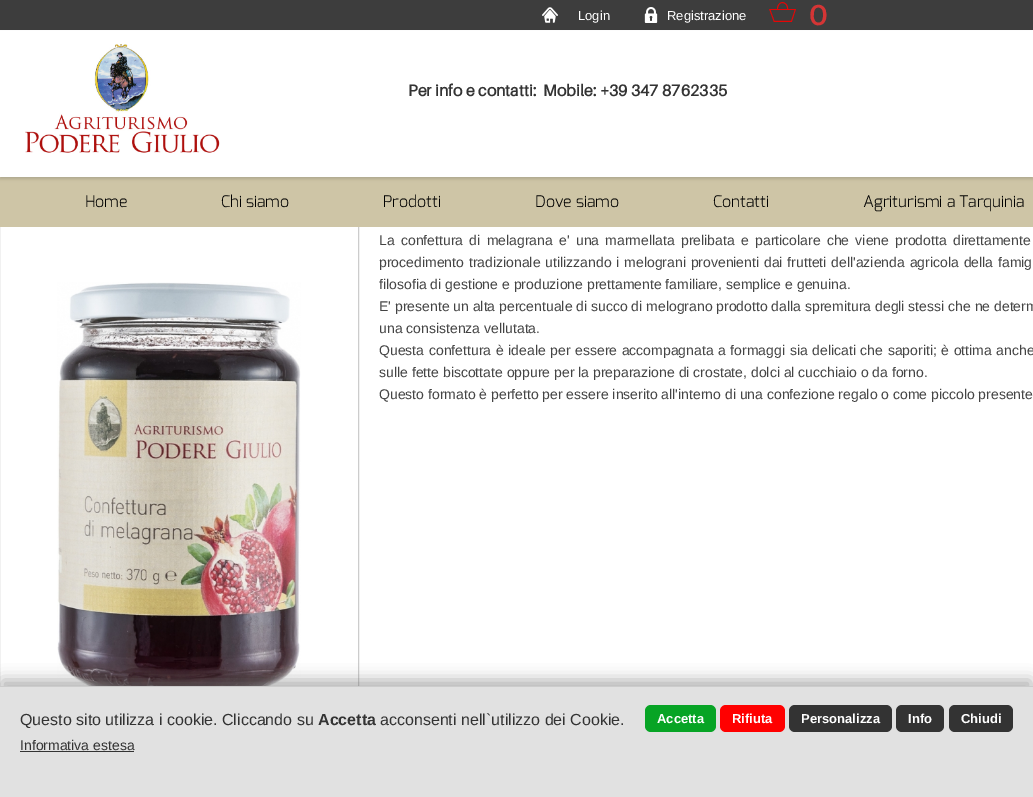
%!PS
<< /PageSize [1033 797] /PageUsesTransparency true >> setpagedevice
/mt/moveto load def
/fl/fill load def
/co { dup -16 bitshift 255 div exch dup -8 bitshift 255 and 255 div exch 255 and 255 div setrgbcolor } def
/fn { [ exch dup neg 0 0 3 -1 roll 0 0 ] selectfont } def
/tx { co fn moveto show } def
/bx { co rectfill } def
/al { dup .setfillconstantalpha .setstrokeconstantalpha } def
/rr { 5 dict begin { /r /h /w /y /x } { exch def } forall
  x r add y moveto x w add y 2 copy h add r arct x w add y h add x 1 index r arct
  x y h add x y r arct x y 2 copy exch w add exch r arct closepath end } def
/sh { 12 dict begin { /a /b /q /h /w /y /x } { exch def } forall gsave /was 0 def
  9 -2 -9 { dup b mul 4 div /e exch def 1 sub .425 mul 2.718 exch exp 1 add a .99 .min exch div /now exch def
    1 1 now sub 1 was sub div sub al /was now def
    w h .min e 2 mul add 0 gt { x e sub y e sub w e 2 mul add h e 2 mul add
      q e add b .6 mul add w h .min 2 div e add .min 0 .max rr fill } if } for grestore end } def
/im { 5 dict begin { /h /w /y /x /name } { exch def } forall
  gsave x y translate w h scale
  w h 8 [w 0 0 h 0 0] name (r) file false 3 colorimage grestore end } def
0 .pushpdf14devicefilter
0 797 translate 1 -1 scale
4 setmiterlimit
0 0 1033 797 16#FFFFFF bx
0 0 1033 30 16#3D3D3D bx
(media/1.raw) 542 7 16 16 im
(media/2.raw) 644 7 14 16 im
16#CCCCCC co
-.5 217.5 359 540 rectstroke
0 177 1033 50 16#CEC5A6 bx
16#333333 co
0 33 1033 146 0 1.5 .2 sh
0 31 1033 146 16#FFFFFF bx
(media/3.raw) 25 44 195 109 im
(media/4.raw) 57 282 244 404 im
16#737373 co
2 680 1029 107 0 7.5 .55 sh
0 687 1033 110 16#E1E1E1 bx
0 686 1033 1 16#CCCCCC bx
20 751 114 1 16#333333 bx
16#07A425 co
645 705 71 27 6 rr fl
16#FF0000 co
720 705 65 27 6 rr fl
16#333333 co
789 705 103 27 6 rr fl
896 705 48 27 6 rr fl
949 705 64 27 6 rr fl
(Login) 578 20 /LiberationSans-Regular 13 16#FFFFFF tx
(Registrazione) 667 20 /LiberationSans-Regular 13 16#FFFFFF tx
(_) 769 22 /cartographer-Regular 25 16#E60505 tx
(0) 809 25 /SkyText-Medium 29 16#D43535 tx
(Per info e contatti:  Mobile: +39 347 8762335) 408 96 /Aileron-Bold 16 16#333333 tx
(Home) 85 207 /Exo-Light 16 16#000000 tx
(Chi siamo) 221 207 /Exo-Light 16 16#000000 tx
(Prodotti) 383 207 /Exo-Light 16 16#000000 tx
(Dove siamo) 535 207 /Exo-Light 16 16#000000 tx
(Contatti) 713 207 /Exo-Light 16 16#000000 tx
(Agriturismi a Tarquinia) 863 207 /Exo-Light 16 16#000000 tx
/LiberationSans-Regular 14 fn
16#444444 co
379 245 mt 2.4 0 32 (La confettura di melagrana e' una marmellata prelibata e particolare che viene prodotta direttamente) widthshow
379 267 mt 1 0 32 (procedimento tradizionale utilizzando i melograni provenienti dai frutteti dell'azienda agricola della famig) widthshow
(filosofia di gestione e produzione prettamente familiare, semplice e genuina.) 379 289 /LiberationSans-Regular 14 16#444444 tx
(E' presente un alta percentuale di succo di melograno prodotto dalla spremitura degli stessi che ne determ) 379 311 /LiberationSans-Regular 14 16#444444 tx
(una consistenza vellutata.) 379 333 /LiberationSans-Regular 14 16#444444 tx
379 355 mt .75 0 32 (Questa confettura è ideale per essere accompagnata a formaggi sia delicati che saporiti; è ottima anche) widthshow
(sulle fette biscottate oppure per la preparazione di crostate, dolci al cucchiaio o da forno.) 379 377 /LiberationSans-Regular 14 16#444444 tx
(Questo formato è perfetto per essere inserito all'interno di una confezione regalo o come piccolo presente) 379 399 /LiberationSans-Regular 14 16#444444 tx
(Questo sito utilizza i cookie. Cliccando su) 20 725 /LiberationSans-Regular 16 16#333333 tx
(Accetta) 318 725 /LiberationSans-Bold 16 16#333333 tx
(acconsenti nell`utilizzo dei Cookie.) 380 725 /LiberationSans-Regular 16 16#333333 tx
(Informativa estesa) 20 750 /LiberationSans-Regular 14 16#333333 tx
(Accetta) 657 723 /LiberationSans-Bold 13 16#FFFFFF tx
(Rifiuta) 732 723 /LiberationSans-Bold 13 16#FFFFFF tx
(Personalizza) 801 723 /LiberationSans-Bold 13 16#FFFFFF tx
(Info) 908 723 /LiberationSans-Bold 13 16#FFFFFF tx
(Chiudi) 961 723 /LiberationSans-Bold 13 16#FFFFFF tx
.poppdf14devicefilter showpage
